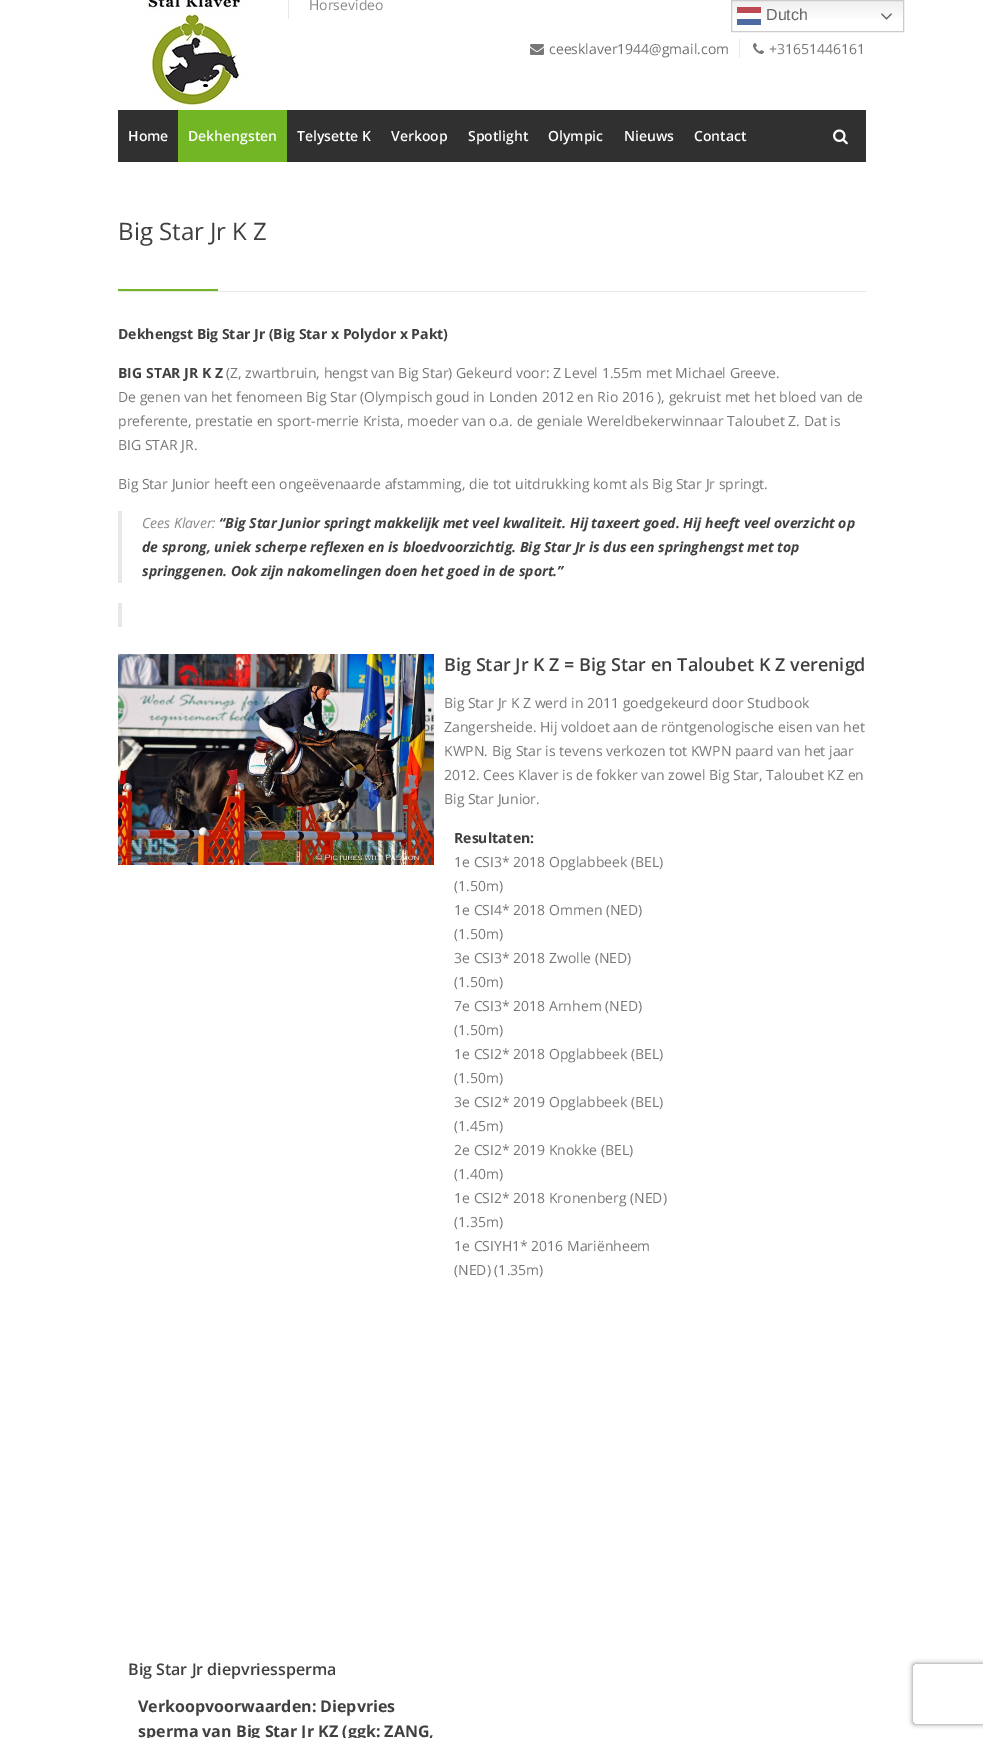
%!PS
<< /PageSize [983 1738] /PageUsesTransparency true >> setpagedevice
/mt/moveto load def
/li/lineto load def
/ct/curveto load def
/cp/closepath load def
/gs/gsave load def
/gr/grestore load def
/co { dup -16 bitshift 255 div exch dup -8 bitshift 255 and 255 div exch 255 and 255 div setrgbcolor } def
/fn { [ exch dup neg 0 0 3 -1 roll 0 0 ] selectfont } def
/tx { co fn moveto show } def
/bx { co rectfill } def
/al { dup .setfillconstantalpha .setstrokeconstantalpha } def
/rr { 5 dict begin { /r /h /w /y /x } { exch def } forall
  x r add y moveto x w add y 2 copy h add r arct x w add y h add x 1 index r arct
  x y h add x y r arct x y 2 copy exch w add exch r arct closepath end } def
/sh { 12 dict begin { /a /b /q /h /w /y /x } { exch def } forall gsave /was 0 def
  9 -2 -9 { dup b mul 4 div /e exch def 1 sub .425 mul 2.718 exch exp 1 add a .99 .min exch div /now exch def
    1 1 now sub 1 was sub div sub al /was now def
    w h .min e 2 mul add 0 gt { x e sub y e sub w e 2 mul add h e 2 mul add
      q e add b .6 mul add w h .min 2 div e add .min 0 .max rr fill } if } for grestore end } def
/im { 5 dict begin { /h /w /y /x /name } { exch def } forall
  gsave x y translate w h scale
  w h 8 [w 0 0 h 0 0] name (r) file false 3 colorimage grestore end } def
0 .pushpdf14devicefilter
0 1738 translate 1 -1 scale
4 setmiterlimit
0 0 983 1738 16#FFFFFF bx
(media/1.raw) 142 0 104 110 im
288 0 1 19 16#E9E9E9 bx
739 39 1 19 16#E9E9E9 bx
(media/2.raw) 530 44 14 11 im
(media/3.raw) 753 43 11 11 im
118 110 748 52 16#303030 bx
178 110 109 52 16#72B626 bx
(media/4.raw) 833 129 15 16 im
118 291 748 1 16#E9E9E9 bx
118 289 100 2 16#72B626 bx
118 511 4 72 16#E7E7E7 bx
118 603 4 24 16#E7E7E7 bx
(media/5.raw) 118 654 316 211 im
gs 732 1 mt 903 1 li 903 19 li 732 19 li cp clip newpath
<< /ShadingType 2 /ColorSpace /DeviceRGB /Coords [818 0 818 32] /Extend [true true] /Function << /FunctionType 3 /Domain [0 1] /Functions [<< /FunctionType 2 /Domain [0 1] /C0 [.937 .937 .937] /C1 [1 1 1] /N 1 >> << /FunctionType 2 /Domain [0 1] /C0 [1 1 1] /C1 [1 1 1] /N 1 >>] /Bounds [.7] /Encode [0 1 0 1] >> >> shfill gr
gs 737 13 mt 761 13 li 761 17 li 737 17 li cp clip newpath
<< /ShadingType 2 /ColorSpace /DeviceRGB /Coords [818 0 818 32] /Extend [true true] /Function << /FunctionType 3 /Domain [0 1] /Functions [<< /FunctionType 2 /Domain [0 1] /C0 [.988 .988 .988] /C1 [1 1 1] /N 1 >> << /FunctionType 2 /Domain [0 1] /C0 [1 1 1] /C1 [1 1 1] /N 1 >>] /Bounds [.7] /Encode [0 1 0 1] >> >> shfill gr
16#CCCCCC co
731.5 .5 172 31 rectstroke
737 7 24 6 16#BE4953 bx
(media/6.raw) 881 13 11 7 im
737 19 24 6 16#4D6BA2 bx
gs
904 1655 mt 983 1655 li 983 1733 li 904 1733 li cp 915 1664 mt 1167 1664 li 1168 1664 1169 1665 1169 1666 ct 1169 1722 li 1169 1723 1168 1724 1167 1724 ct 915 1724 li 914 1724 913 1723 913 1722 ct 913 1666 li 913 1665 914 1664 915 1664 ct cp eoclip newpath
16#808080 co
913 1664 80 60 2 2.5 1 sh
gr
(Horsevideo) 309 10 /OpenSans-Regular 14 16#888888 tx
(ceesklaver1944@gmail.com) 549 54 /OpenSans-Regular 14 16#707070 tx
(+31651446161) 769 54 /OpenSans-Regular 14 16#777777 tx
(Home) 128 141 /OpenSans-SemiBold 14 16#FFFFFF tx
(Dekhengsten) 188 141 /OpenSans-SemiBold 14 16#FFFFFF tx
(Telysette K) 297 141 /OpenSans-SemiBold 14 16#FFFFFF tx
(Verkoop) 391 141 /OpenSans-SemiBold 14 16#FFFFFF tx
(Spotlight) 468 141 /OpenSans-SemiBold 14 16#FFFFFF tx
(Olympic) 548 141 /OpenSans-SemiBold 14 16#FFFFFF tx
(Nieuws) 624 141 /OpenSans-SemiBold 14 16#FFFFFF tx
(Contact) 694 141 /OpenSans-SemiBold 14 16#FFFFFF tx
(Big Star Jr K Z) 118 240 /OpenSans-Regular 24 16#404040 tx
(Dekhengst Big Star Jr \(Big Star x Polydor x Pakt\)) 118 339 /OpenSans-Bold 14 16#404040 tx
(BIG STAR JR K Z) 118 378 /OpenSans-Bold 14 16#404040 tx
(\(Z, zwartbruin, hengst van Big Star\) Gekeurd voor: Z Level 1.55m met Michael Greeve.) 226 378 /OpenSans-Regular 14 16#777777 tx
(De genen van het fenomeen Big Star \(Olympisch goud in Londen 2012 en Rio 2016 \), gekruist met het bloed van de) 118 402 /OpenSans-Regular 14 16#777777 tx
(preferente, prestatie en sport-merrie Krista, moeder van o.a. de geniale Wereldbekerwinnaar Taloubet Z. Dat is) 118 426 /OpenSans-Regular 14 16#777777 tx
(BIG STAR JR.) 118 450 /OpenSans-Regular 14 16#777777 tx
(Big Star Junior heeft een ongeëvenaarde afstamming, die tot uitdrukking komt als Big Star Jr springt.) 118 489 /OpenSans-Regular 14 16#777777 tx
(Cees Klaver:) 142 528 /OpenSans-Italic 14 16#888888 tx
(“Big Star Junior springt makkelijk met veel kwaliteit. Hij taxeert goed. Hij heeft veel overzicht op) 219 528 /OpenSans-BoldItalic 14 16#404040 tx
(de sprong, uniek scherpe reflexen en is bloedvoorzichtig. Big Star Jr is dus een springhengst met top) 142 552 /OpenSans-BoldItalic 14 16#404040 tx
(springgenen. Ook zijn nakomelingen doen het goed in de sport.”) 142 576 /OpenSans-BoldItalic 14 16#404040 tx
(Big Star Jr K Z = Big Star en Taloubet K Z verenigd) 444 671 /OpenSans-SemiBold 18 16#404040 tx
(Big Star Jr K Z werd in 2011 goedgekeurd door Studbook) 444 708 /OpenSans-Regular 14 16#777777 tx
(Zangersheide. Hij voldoet aan de röntgenologische eisen van het) 444 732 /OpenSans-Regular 14 16#777777 tx
(KWPN. Big Star is tevens verkozen tot KWPN paard van het jaar) 444 756 /OpenSans-Regular 14 16#777777 tx
(2012. Cees Klaver is de fokker van zowel Big Star, Taloubet KZ en) 444 780 /OpenSans-Regular 14 16#777777 tx
(Big Star Junior.) 444 804 /OpenSans-Regular 14 16#777777 tx
(Resultaten:) 454 843 /OpenSans-Bold 14 16#404040 tx
(1e CSI3* 2018 Opglabbeek \(BEL\)) 454 867 /OpenSans-Regular 14 16#777777 tx
(\(1.50m\)) 454 891 /OpenSans-Regular 14 16#777777 tx
(1e CSI4* 2018 Ommen \(NED\)) 454 915 /OpenSans-Regular 14 16#777777 tx
(\(1.50m\)) 454 939 /OpenSans-Regular 14 16#777777 tx
(3e CSI3* 2018 Zwolle \(NED\)) 454 963 /OpenSans-Regular 14 16#777777 tx
(\(1.50m\)) 454 987 /OpenSans-Regular 14 16#777777 tx
(7e CSI3* 2018 Arnhem \(NED\)) 454 1011 /OpenSans-Regular 14 16#777777 tx
(\(1.50m\)) 454 1035 /OpenSans-Regular 14 16#777777 tx
(1e CSI2* 2018 Opglabbeek \(BEL\)) 454 1059 /OpenSans-Regular 14 16#777777 tx
(\(1.50m\)) 454 1083 /OpenSans-Regular 14 16#777777 tx
(3e CSI2* 2019 Opglabbeek \(BEL\)) 454 1107 /OpenSans-Regular 14 16#777777 tx
(\(1.45m\)) 454 1131 /OpenSans-Regular 14 16#777777 tx
(2e CSI2* 2019 Knokke \(BEL\)) 454 1155 /OpenSans-Regular 14 16#777777 tx
(\(1.40m\)) 454 1179 /OpenSans-Regular 14 16#777777 tx
(1e CSI2* 2018 Kronenberg \(NED\)) 454 1203 /OpenSans-Regular 14 16#777777 tx
(\(1.35m\)) 454 1227 /OpenSans-Regular 14 16#777777 tx
(1e CSIYH1* 2016 Mariënheem) 454 1251 /OpenSans-Regular 14 16#777777 tx
(\(NED\) \(1.35m\)) 454 1275 /OpenSans-Regular 14 16#777777 tx
(Big Star Jr diepvriessperma) 128 1675 /OpenSans-SemiBold 16 16#404040 tx
(Verkoopvoorwaarden: Diepvries) 138 1712 /OpenSans-Bold 16 16#404040 tx
(sperma van Big Star Jr KZ \(ggk: ZANG,) 138 1737 /OpenSans-Bold 16 16#404040 tx
(Dutch) 766 20 /LiberationSans-Regular 16 16#666666 tx
.poppdf14devicefilter showpage
